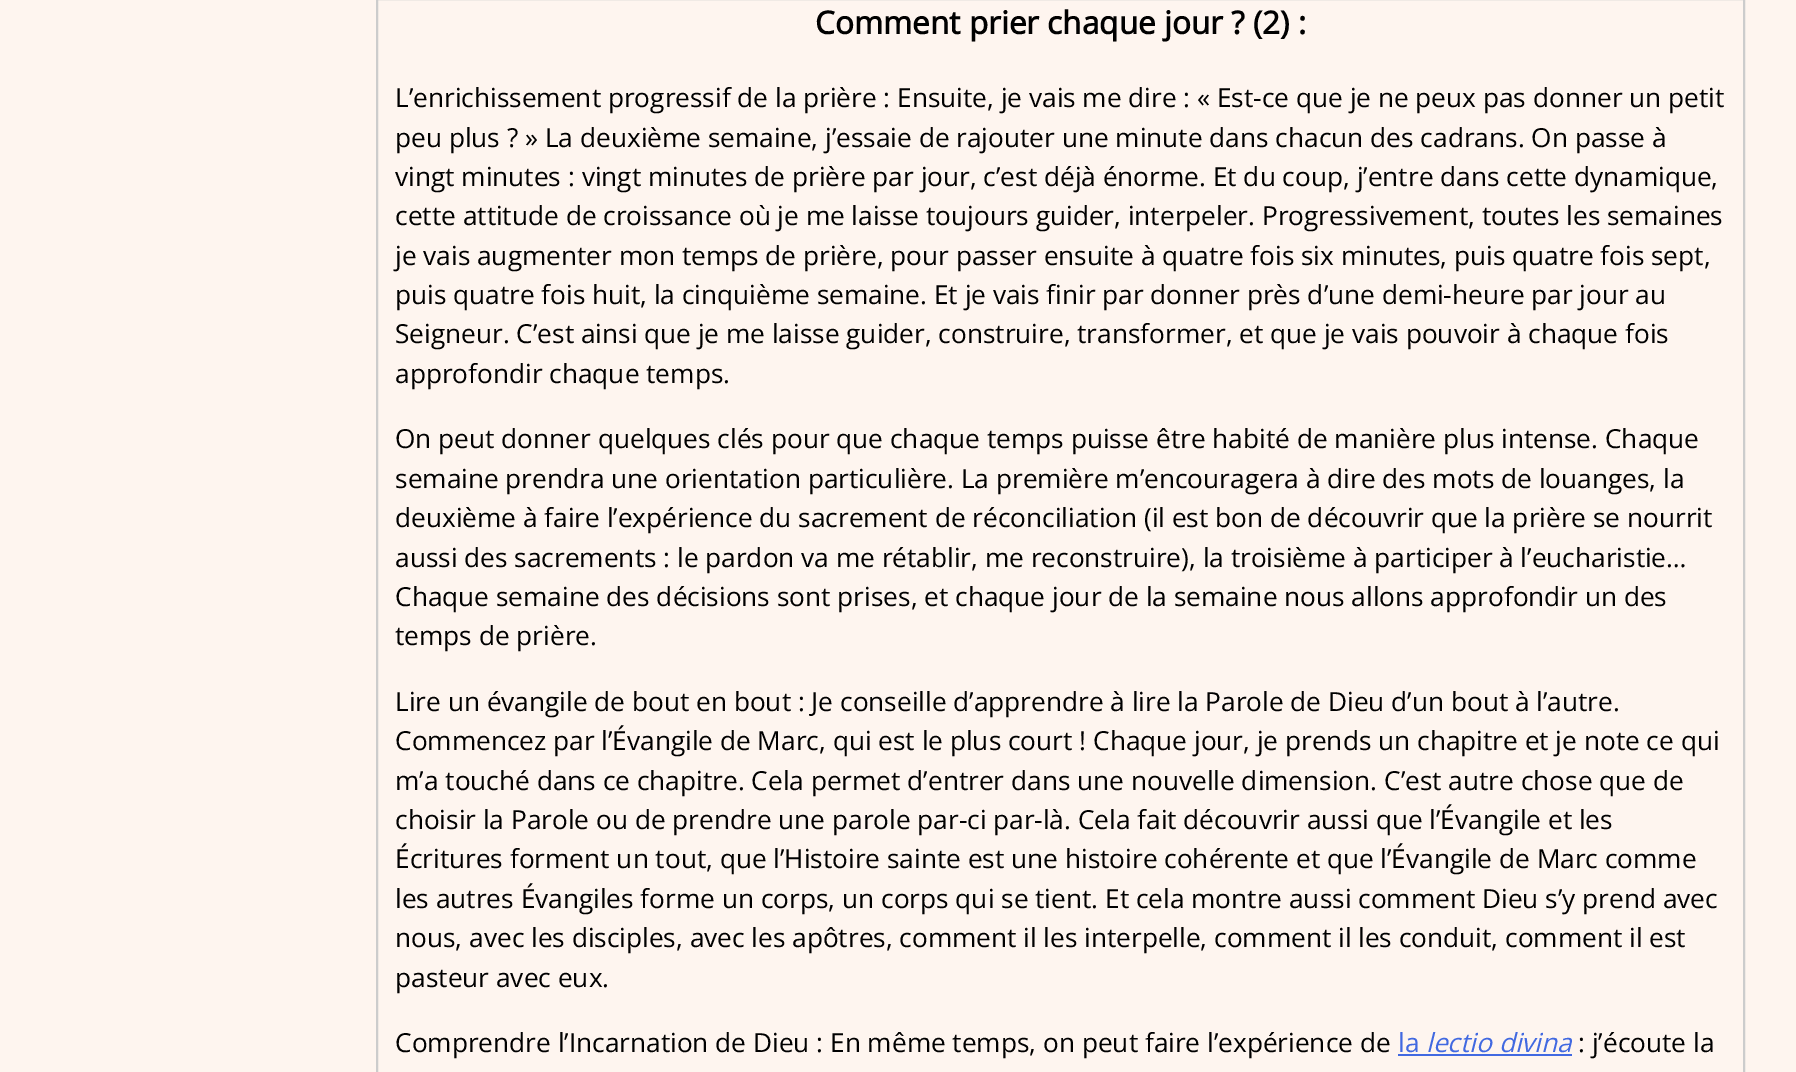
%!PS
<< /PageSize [1796 1072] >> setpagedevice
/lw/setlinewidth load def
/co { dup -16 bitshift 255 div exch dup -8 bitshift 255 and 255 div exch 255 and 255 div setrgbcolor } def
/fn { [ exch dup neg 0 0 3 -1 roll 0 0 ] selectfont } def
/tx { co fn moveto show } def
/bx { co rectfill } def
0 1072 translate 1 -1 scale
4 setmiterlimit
0 0 1796 1072 16#FEF5EF bx
16#CCCCCC co
2 lw
377 -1 1367 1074 rectstroke
1398 1054 174 2 16#4169E1 bx
(Comment prier chaque jour ? \(2\) :) 815 34 /OpenSans-Bold 31.5 16#000000 tx
(L’enrichissement progressif de la prière : Ensuite, je vais me dire : « Est-ce que je ne peux pas donner un petit) 395 107 /OpenSans-Regular 26.25 16#000000 tx
(peu plus ? » La deuxième semaine, j’essaie de rajouter une minute dans chacun des cadrans. On passe à) 395 147 /OpenSans-Regular 26.25 16#000000 tx
(vingt minutes : vingt minutes de prière par jour, c’est déjà énorme. Et du coup, j’entre dans cette dynamique,) 395 186 /OpenSans-Regular 26.25 16#000000 tx
(cette attitude de croissance où je me laisse toujours guider, interpeler. Progressivement, toutes les semaines) 395 225 /OpenSans-Regular 26.25 16#000000 tx
(je vais augmenter mon temps de prière, pour passer ensuite à quatre fois six minutes, puis quatre fois sept,) 395 265 /OpenSans-Regular 26.25 16#000000 tx
(puis quatre fois huit, la cinquième semaine. Et je vais finir par donner près d’une demi-heure par jour au) 395 304 /OpenSans-Regular 26.25 16#000000 tx
(Seigneur. C’est ainsi que je me laisse guider, construire, transformer, et que je vais pouvoir à chaque fois) 395 343 /OpenSans-Regular 26.25 16#000000 tx
(approfondir chaque temps.) 395 383 /OpenSans-Regular 26.25 16#000000 tx
(On peut donner quelques clés pour que chaque temps puisse être habité de manière plus intense. Chaque) 395 448 /OpenSans-Regular 26.25 16#000000 tx
(semaine prendra une orientation particulière. La première m’encouragera à dire des mots de louanges, la) 395 488 /OpenSans-Regular 26.25 16#000000 tx
(deuxième à faire l’expérience du sacrement de réconciliation \(il est bon de découvrir que la prière se nourrit) 395 527 /OpenSans-Regular 26.25 16#000000 tx
(aussi des sacrements : le pardon va me rétablir, me reconstruire\), la troisième à participer à l’eucharistie…) 395 567 /OpenSans-Regular 26.25 16#000000 tx
(Chaque semaine des décisions sont prises, et chaque jour de la semaine nous allons approfondir un des) 395 606 /OpenSans-Regular 26.25 16#000000 tx
(temps de prière.) 395 645 /OpenSans-Regular 26.25 16#000000 tx
(Lire un évangile de bout en bout : Je conseille d’apprendre à lire la Parole de Dieu d’un bout à l’autre.) 395 711 /OpenSans-Regular 26.25 16#000000 tx
(Commencez par l’Évangile de Marc, qui est le plus court ! Chaque jour, je prends un chapitre et je note ce qui) 395 750 /OpenSans-Regular 26.25 16#000000 tx
(m’a touché dans ce chapitre. Cela permet d’entrer dans une nouvelle dimension. C’est autre chose que de) 395 790 /OpenSans-Regular 26.25 16#000000 tx
(choisir la Parole ou de prendre une parole par-ci par-là. Cela fait découvrir aussi que l’Évangile et les) 395 829 /OpenSans-Regular 26.25 16#000000 tx
(Écritures forment un tout, que l’Histoire sainte est une histoire cohérente et que l’Évangile de Marc comme) 395 868 /OpenSans-Regular 26.25 16#000000 tx
(les autres Évangiles forme un corps, un corps qui se tient. Et cela montre aussi comment Dieu s’y prend avec) 395 908 /OpenSans-Regular 26.25 16#000000 tx
(nous, avec les disciples, avec les apôtres, comment il les interpelle, comment il les conduit, comment il est) 395 947 /OpenSans-Regular 26.25 16#000000 tx
(pasteur avec eux.) 395 987 /OpenSans-Regular 26.25 16#000000 tx
(Comprendre l’Incarnation de Dieu : En même temps, on peut faire l’expérience de) 395 1052 /OpenSans-Regular 26.25 16#000000 tx
(la) 1398 1052 /OpenSans-Regular 26.25 16#4169E1 tx
(lectio divina) 1426 1052 /OpenSans-Italic 26.25 16#4169E1 tx
(: j’écoute la) 1578 1052 /OpenSans-Regular 26.25 16#000000 tx
showpage
